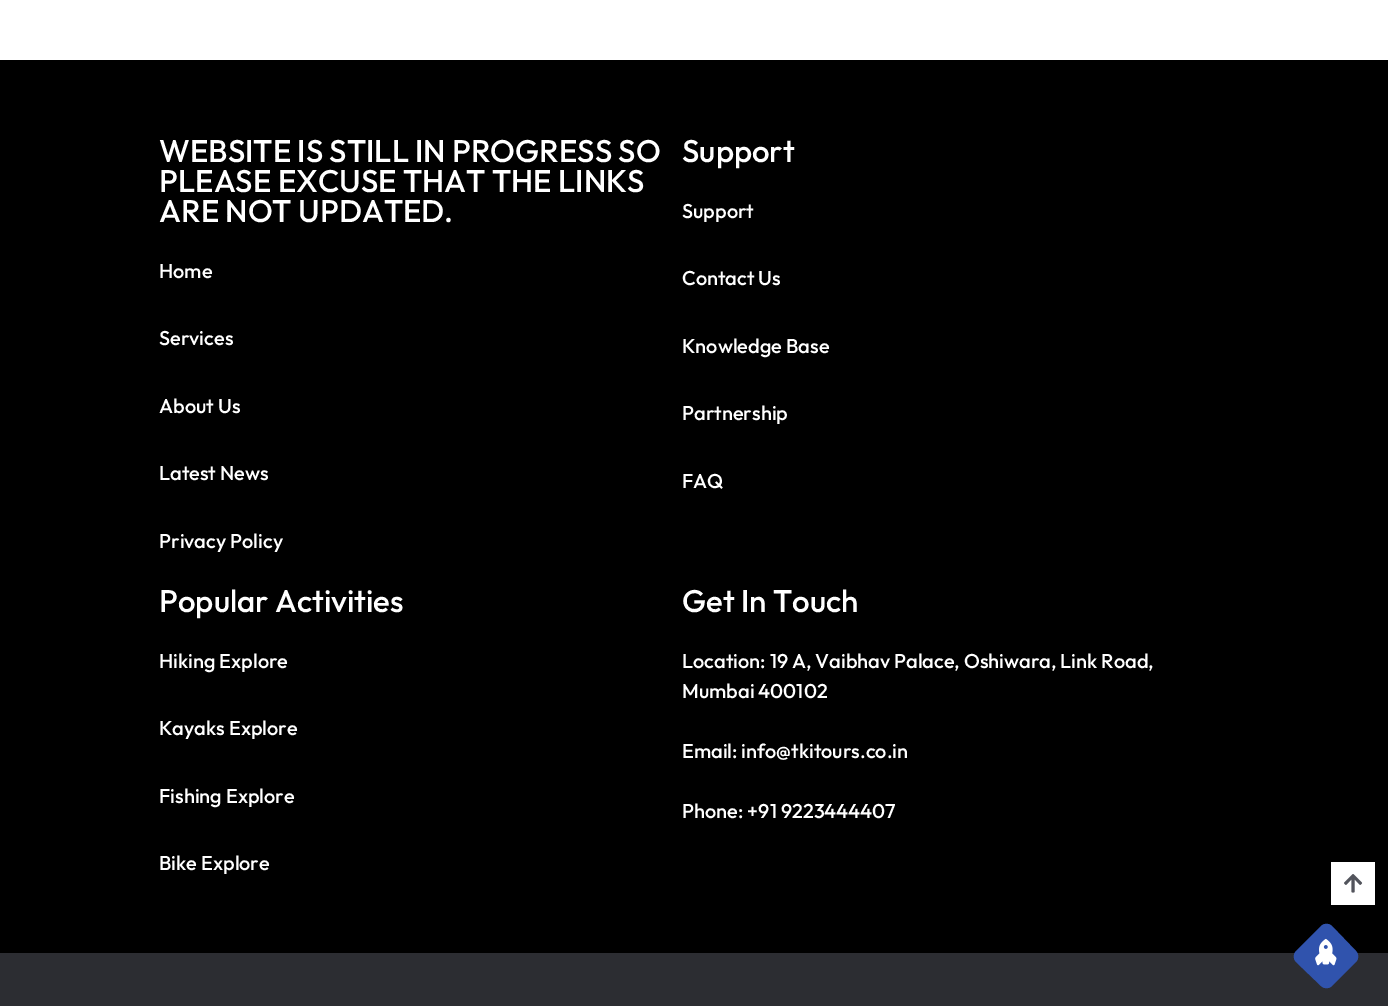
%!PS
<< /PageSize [1388 1006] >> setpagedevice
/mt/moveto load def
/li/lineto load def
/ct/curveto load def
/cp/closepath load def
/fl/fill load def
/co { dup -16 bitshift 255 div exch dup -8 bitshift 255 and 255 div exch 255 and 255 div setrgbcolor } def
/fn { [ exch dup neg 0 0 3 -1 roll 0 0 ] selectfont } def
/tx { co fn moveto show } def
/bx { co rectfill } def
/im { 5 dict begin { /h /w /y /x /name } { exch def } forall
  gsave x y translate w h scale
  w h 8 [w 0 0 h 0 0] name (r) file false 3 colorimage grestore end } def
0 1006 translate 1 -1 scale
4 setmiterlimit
0 0 1388 1006 16#FFFFFF bx
0 60 1388 893 16#000000 bx
0 953 1388 53 16#2C2D32 bx
16#3053AD co
1296 951 mt 1321 926 li 1324 923 1329 923 1332 926 ct 1356 951 li 1359 954 1359 959 1356 962 ct 1332 986 li 1329 989 1324 989 1321 986 ct 1296 962 li 1293 959 1293 954 1296 951 ct cp fl
(media/1.raw) 1315 938 22 28 im
1331 862 44 43 16#FFFFFF bx
(media/2.raw) 1344 874 19 19 im
(WEBSITE IS STILL IN PROGRESS SO) 159 162 /Outfit-Medium 31.25 16#FFFFFF tx
(PLEASE EXCUSE THAT THE LINKS) 159 192 /Outfit-Medium 31.25 16#FFFFFF tx
(ARE NOT UPDATED.) 159 222 /Outfit-Medium 31.25 16#FFFFFF tx
(Home) 159 278 /Outfit-Medium 20 16#FFFFFF tx
(Services) 159 345 /Outfit-Medium 20 16#FFFFFF tx
(About Us) 159 413 /Outfit-Medium 20 16#FFFFFF tx
(Latest News) 159 480 /Outfit-Medium 20 16#FFFFFF tx
(Privacy Policy) 159 548 /Outfit-Medium 20 16#FFFFFF tx
(Support) 682 162 /Outfit-Medium 31.25 16#FFFFFF tx
(Support) 682 218 /Outfit-Medium 20 16#FFFFFF tx
(Contact Us) 682 285 /Outfit-Medium 20 16#FFFFFF tx
(Knowledge Base) 682 353 /Outfit-Medium 20 16#FFFFFF tx
(Partnership) 682 420 /Outfit-Medium 20 16#FFFFFF tx
(FAQ) 682 488 /Outfit-Medium 20 16#FFFFFF tx
(Popular Activities) 159 612 /Outfit-Medium 31.25 16#FFFFFF tx
(Hiking Explore) 159 668 /Outfit-Medium 20 16#FFFFFF tx
(Kayaks Explore) 159 735 /Outfit-Medium 20 16#FFFFFF tx
(Fishing Explore) 159 803 /Outfit-Medium 20 16#FFFFFF tx
(Bike Explore) 159 870 /Outfit-Medium 20 16#FFFFFF tx
(Get In Touch) 682 612 /Outfit-Medium 31.25 16#FFFFFF tx
(Location: 19 A, Vaibhav Palace, Oshiwara, Link Road,) 682 668 /Outfit-Medium 20 16#FFFFFF tx
(Mumbai 400102) 682 698 /Outfit-Medium 20 16#FFFFFF tx
(Email: info@tkitours.co.in) 682 758 /Outfit-Medium 20 16#FFFFFF tx
(Phone: +91 9223444407) 682 818 /Outfit-Medium 20 16#FFFFFF tx
showpage
